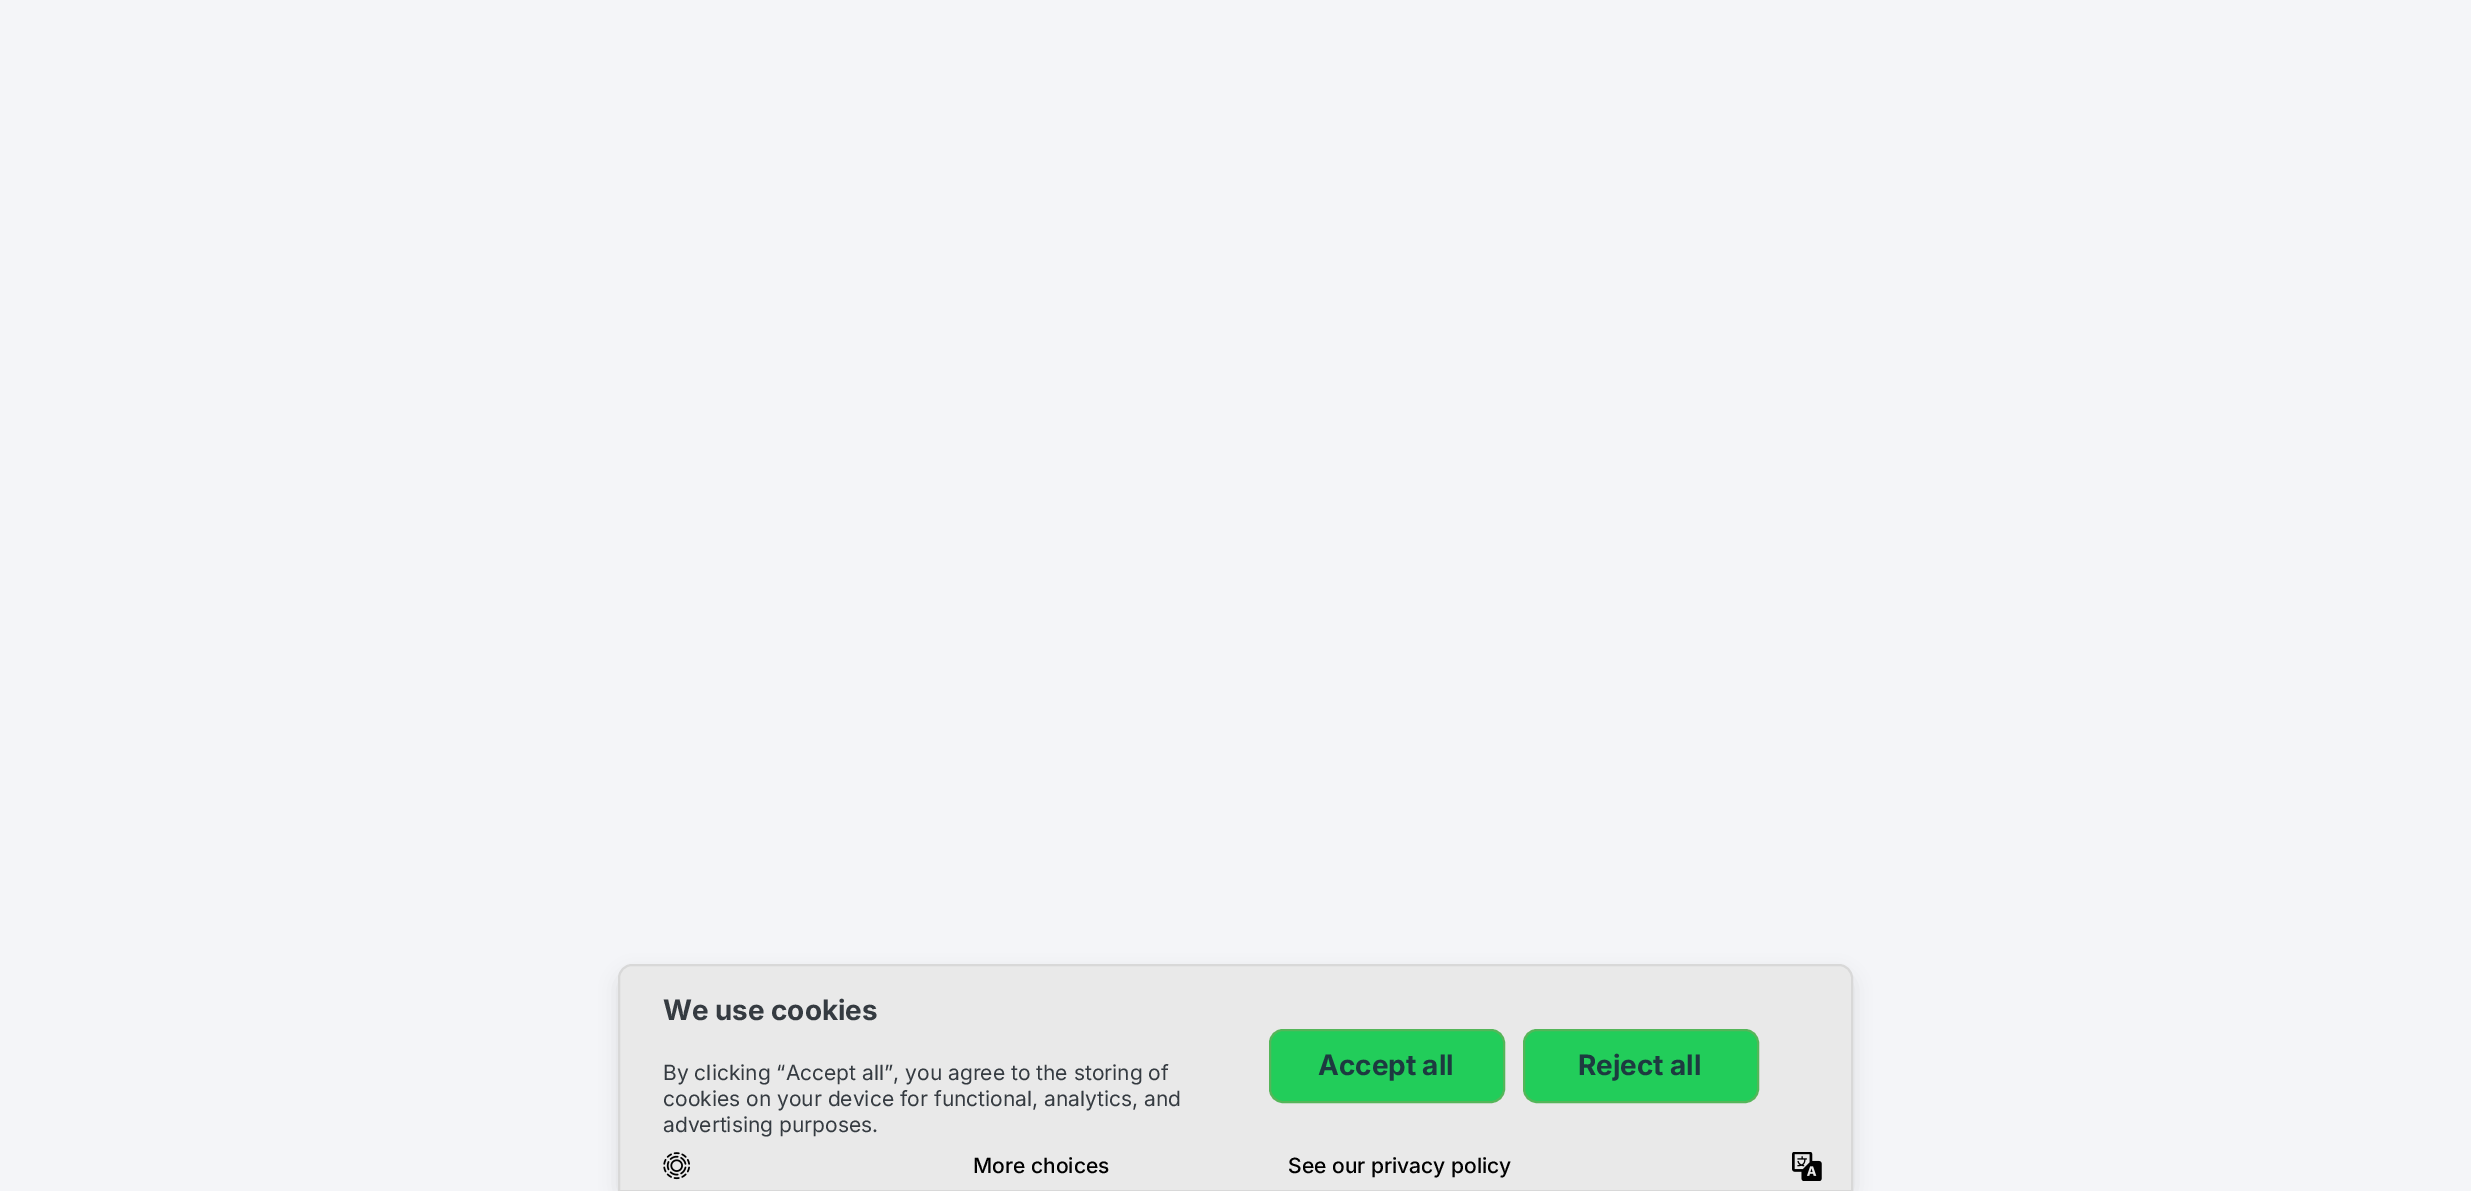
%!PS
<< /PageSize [2471 1191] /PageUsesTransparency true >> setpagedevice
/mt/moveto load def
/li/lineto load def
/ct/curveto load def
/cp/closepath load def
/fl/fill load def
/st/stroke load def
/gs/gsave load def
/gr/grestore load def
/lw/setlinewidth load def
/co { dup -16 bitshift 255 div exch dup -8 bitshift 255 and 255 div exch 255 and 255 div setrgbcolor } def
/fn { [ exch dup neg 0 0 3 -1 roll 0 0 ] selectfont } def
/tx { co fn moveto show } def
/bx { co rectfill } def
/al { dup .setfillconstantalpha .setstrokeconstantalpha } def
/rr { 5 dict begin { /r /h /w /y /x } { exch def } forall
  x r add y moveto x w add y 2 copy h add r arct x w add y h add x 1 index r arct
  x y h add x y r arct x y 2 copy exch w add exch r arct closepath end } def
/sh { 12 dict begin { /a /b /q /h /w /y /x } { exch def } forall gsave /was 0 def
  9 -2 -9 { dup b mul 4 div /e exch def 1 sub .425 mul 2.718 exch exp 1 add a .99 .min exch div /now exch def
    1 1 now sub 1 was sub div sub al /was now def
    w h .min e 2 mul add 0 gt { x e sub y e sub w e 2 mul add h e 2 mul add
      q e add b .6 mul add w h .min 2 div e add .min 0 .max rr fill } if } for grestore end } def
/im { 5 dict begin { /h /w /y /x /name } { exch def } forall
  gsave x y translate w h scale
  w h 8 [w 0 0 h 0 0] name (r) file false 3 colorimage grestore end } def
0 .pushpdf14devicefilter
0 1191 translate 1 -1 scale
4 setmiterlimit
0 0 2471 1191 16#F4F5F8 bx
16#000000 co
618 973 1235 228 14 9 .1 sh
16#E9E9E9 co
632 965 mt 1839 965 li 1846 965 1852 971 1852 978 ct 1852 1191 li 619 1191 li 619 978 li 619 971 625 965 632 965 ct cp gs fl gr
16#D8D8D8 co
2 lw
st
16#22CD5A co
1270 1030 234 72 13 rr gs fl gr
16#54B659 co
st
16#22CD5A co
1524 1030 234 72 13 rr gs fl gr
16#54B659 co
st
(media/1.raw) 663 1152 27 28 im
(media/2.raw) 1792 1152 30 29 im
(We use cookies) 663 1020 /Inter-Bold 28 16#353B41 tx
(By clicking “Accept all”, you agree to the storing of) 663 1080 /Inter-Regular 21 16#353B41 tx
(cookies on your device for functional, analytics, and) 663 1106 /Inter-Regular 21 16#353B41 tx
(advertising purposes.) 663 1132 /Inter-Regular 21 16#353B41 tx
(Accept all) 1318 1075 /Inter-Bold 28 16#1D3A40 tx
(Reject all) 1578 1075 /Inter-Bold 28 16#1D3A40 tx
(More choices) 973 1173 /Inter-Medium 21 16#010101 tx
(See our privacy policy) 1288 1173 /Inter-Medium 21 16#010101 tx
.poppdf14devicefilter showpage
